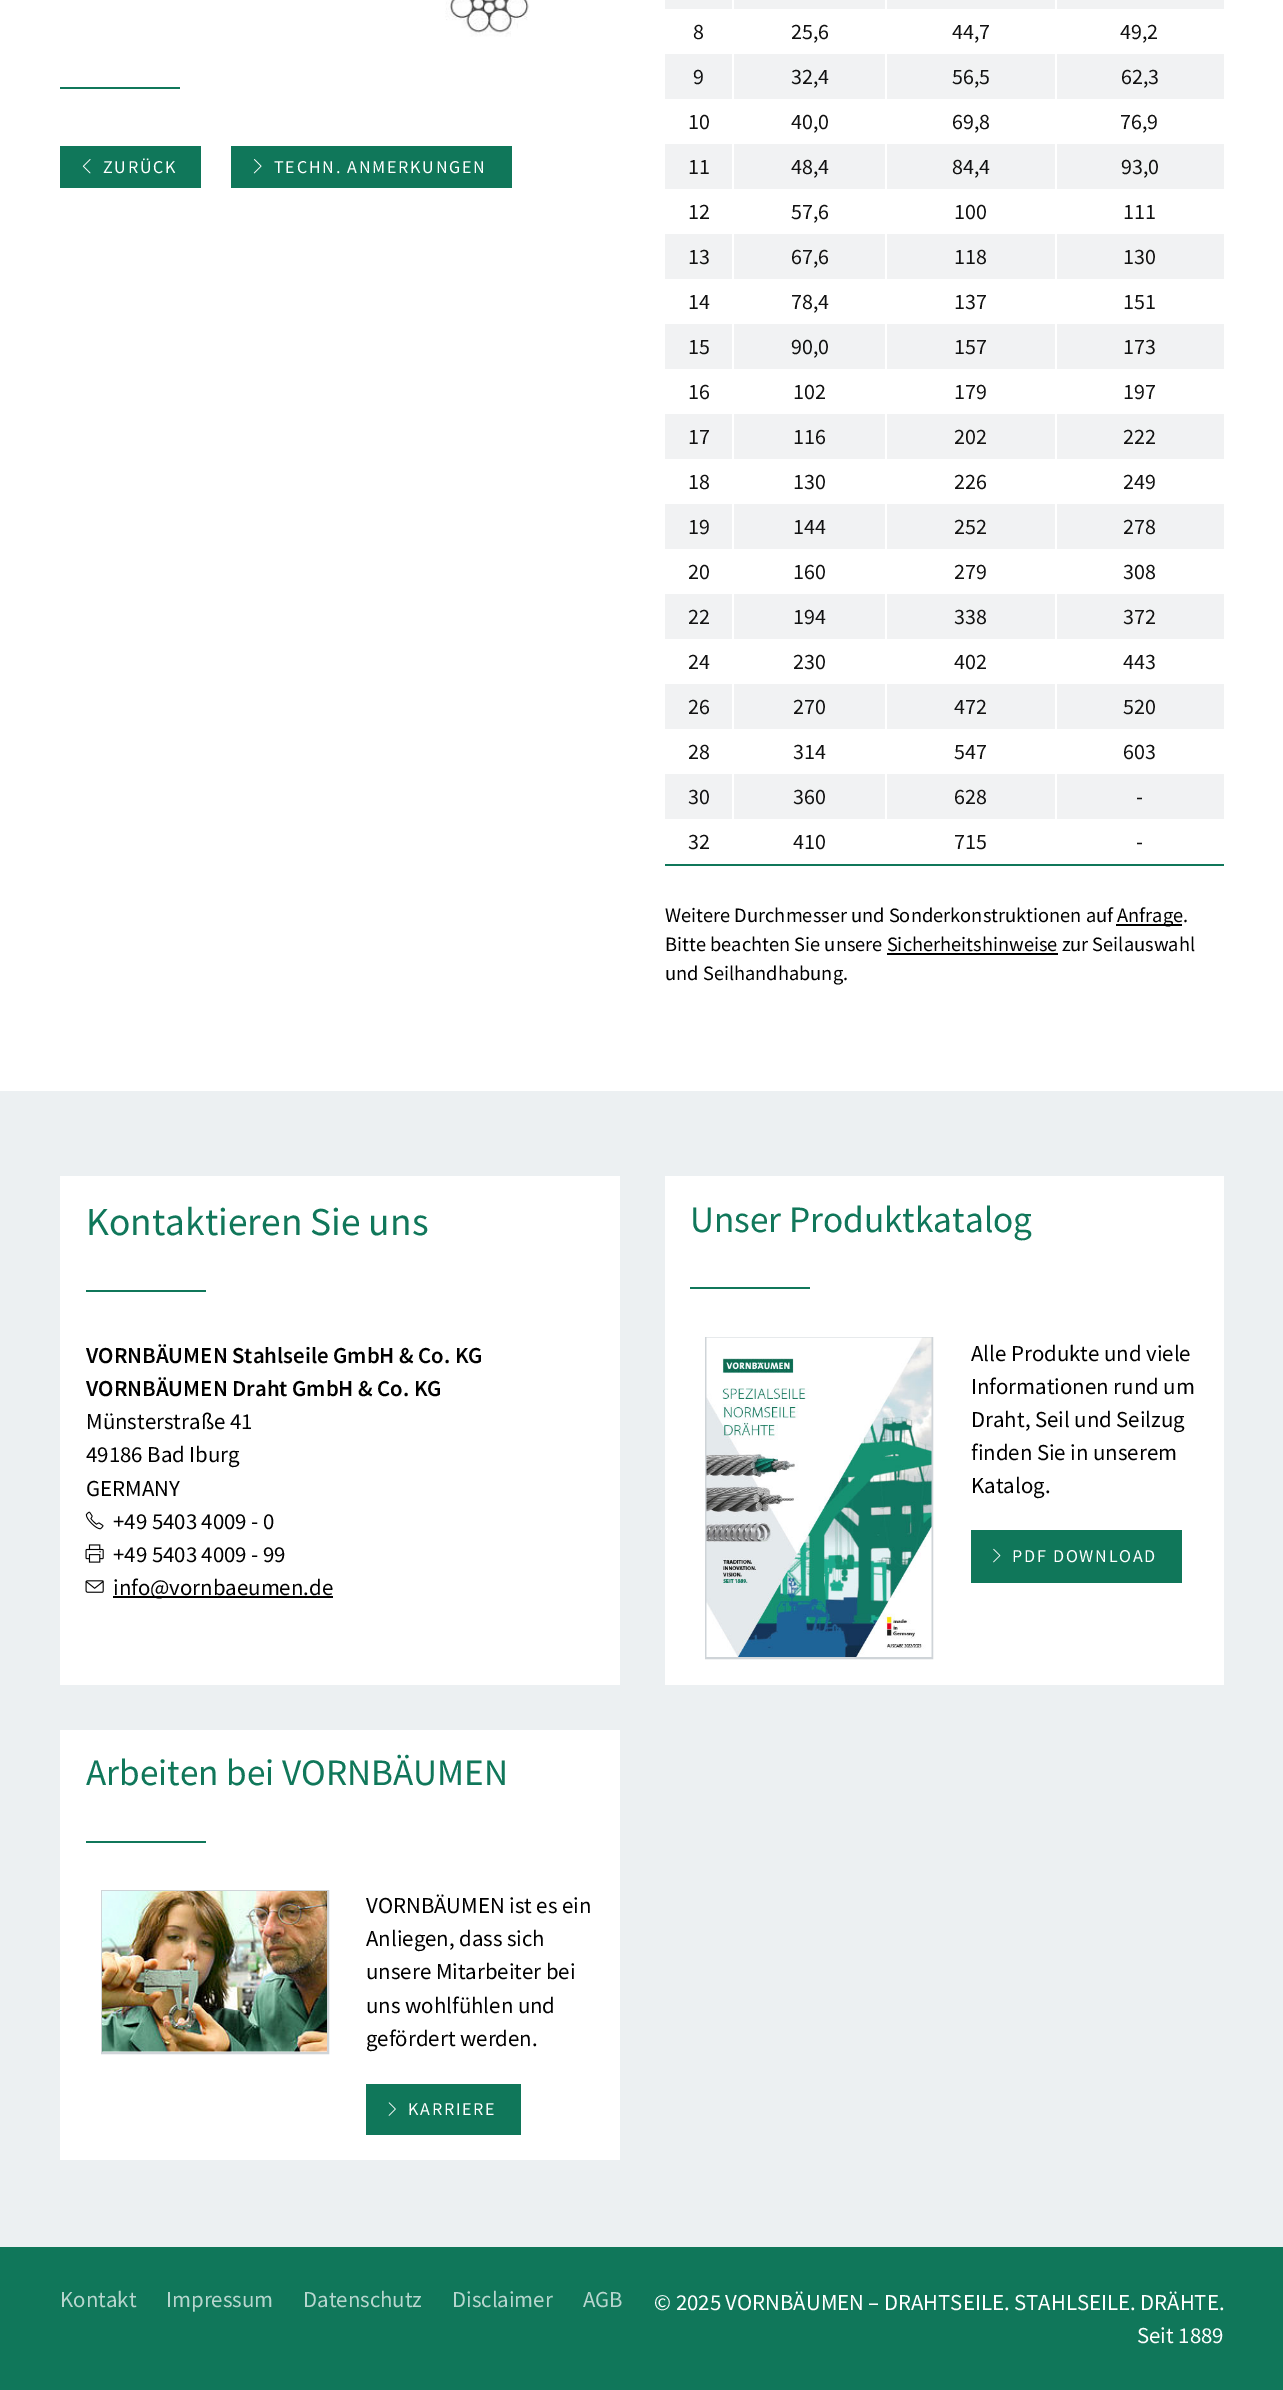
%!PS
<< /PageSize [1283 2390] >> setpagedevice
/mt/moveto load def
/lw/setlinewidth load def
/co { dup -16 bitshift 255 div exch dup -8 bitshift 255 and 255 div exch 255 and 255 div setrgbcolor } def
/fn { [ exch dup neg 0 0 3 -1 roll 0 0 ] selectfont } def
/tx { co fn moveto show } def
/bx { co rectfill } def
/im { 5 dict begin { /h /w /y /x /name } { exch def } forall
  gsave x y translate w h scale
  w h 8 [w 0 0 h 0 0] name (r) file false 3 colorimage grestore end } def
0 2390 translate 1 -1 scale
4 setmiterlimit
0 0 1283 2390 16#FFFFFF bx
(media/1.raw) 445 0 85 37 im
60 87 120 2 16#10775A bx
60 146 141 42 16#10775A bx
(media/2.raw) 82 159 9 15 im
231 146 281 42 16#10775A bx
(media/3.raw) 253 159 9 15 im
665 864 559 2 16#10775A bx
665 0 67 9 16#F1F2F3 bx
734 0 151 9 16#F1F2F3 bx
887 0 168 9 16#F1F2F3 bx
1057 0 167 9 16#F1F2F3 bx
665 54 67 45 16#F1F2F3 bx
734 54 151 45 16#F1F2F3 bx
887 54 168 45 16#F1F2F3 bx
1057 54 167 45 16#F1F2F3 bx
665 144 67 45 16#F1F2F3 bx
734 144 151 45 16#F1F2F3 bx
887 144 168 45 16#F1F2F3 bx
1057 144 167 45 16#F1F2F3 bx
665 234 67 45 16#F1F2F3 bx
734 234 151 45 16#F1F2F3 bx
887 234 168 45 16#F1F2F3 bx
1057 234 167 45 16#F1F2F3 bx
665 324 67 45 16#F1F2F3 bx
734 324 151 45 16#F1F2F3 bx
887 324 168 45 16#F1F2F3 bx
1057 324 167 45 16#F1F2F3 bx
665 414 67 45 16#F1F2F3 bx
734 414 151 45 16#F1F2F3 bx
887 414 168 45 16#F1F2F3 bx
1057 414 167 45 16#F1F2F3 bx
665 504 67 45 16#F1F2F3 bx
734 504 151 45 16#F1F2F3 bx
887 504 168 45 16#F1F2F3 bx
1057 504 167 45 16#F1F2F3 bx
665 594 67 45 16#F1F2F3 bx
734 594 151 45 16#F1F2F3 bx
887 594 168 45 16#F1F2F3 bx
1057 594 167 45 16#F1F2F3 bx
665 684 67 45 16#F1F2F3 bx
734 684 151 45 16#F1F2F3 bx
887 684 168 45 16#F1F2F3 bx
1057 684 167 45 16#F1F2F3 bx
665 774 67 45 16#F1F2F3 bx
734 774 151 45 16#F1F2F3 bx
887 774 168 45 16#F1F2F3 bx
1057 774 167 45 16#F1F2F3 bx
1116 924 66 2 16#000000 bx
887 953 171 2 16#000000 bx
0 1091 1283 1156 16#ECF0F2 bx
60 1176 560 509 16#FFFFFF bx
86 1290 120 2 16#10775A bx
(media/4.raw) 85 1511 19 19 im
(media/5.raw) 85 1544 19 19 im
(media/6.raw) 85 1580 19 13 im
113 1596 220 2 16#000000 bx
665 1176 559 509 16#FFFFFF bx
690 1287 120 2 16#10775A bx
16#CFD4D8 co
2 lw
706 1338 226 320 rectstroke
(media/7.raw) 706 1337 226 320 im
971 1530 211 53 16#10775A bx
(media/8.raw) 993 1548 8 15 im
60 1730 560 430 16#FFFFFF bx
86 1841 120 2 16#10775A bx
16#CFD4D8 co
102 1891 226 162 rectstroke
(media/9.raw) 102 1891 225 161 im
366 2084 155 51 16#10775A bx
(media/10.raw) 388 2102 8 14 im
0 2247 1283 143 16#10775A bx
/SourceSansPro-Regular 18 fn
16#FFFFFF co
103 173 mt 1.75 0 (ZURÜCK) ashow
274 173 mt 1.75 0 (TECHN. ANMERKUNGEN) ashow
(8) 693 39 /SourceSansPro-Regular 22 16#111111 tx
(25,6) 791 39 /SourceSansPro-Regular 22 16#111111 tx
(44,7) 952 39 /SourceSansPro-Regular 22 16#111111 tx
(49,2) 1120 39 /SourceSansPro-Regular 22 16#111111 tx
(9) 693 84 /SourceSansPro-Regular 22 16#111111 tx
(32,4) 791 84 /SourceSansPro-Regular 22 16#111111 tx
(56,5) 952 84 /SourceSansPro-Regular 22 16#111111 tx
(62,3) 1121 84 /SourceSansPro-Regular 22 16#111111 tx
(10) 688 129 /SourceSansPro-Regular 22 16#111111 tx
(40,0) 791 129 /SourceSansPro-Regular 22 16#111111 tx
(69,8) 952 129 /SourceSansPro-Regular 22 16#111111 tx
(76,9) 1120 129 /SourceSansPro-Regular 22 16#111111 tx
(11) 688 174 /SourceSansPro-Regular 22 16#111111 tx
(48,4) 791 174 /SourceSansPro-Regular 22 16#111111 tx
(84,4) 952 174 /SourceSansPro-Regular 22 16#111111 tx
(93,0) 1121 174 /SourceSansPro-Regular 22 16#111111 tx
(12) 688 219 /SourceSansPro-Regular 22 16#111111 tx
(57,6) 791 219 /SourceSansPro-Regular 22 16#111111 tx
(100) 954 219 /SourceSansPro-Regular 22 16#111111 tx
(111) 1123 219 /SourceSansPro-Regular 22 16#111111 tx
(13) 688 264 /SourceSansPro-Regular 22 16#111111 tx
(67,6) 791 264 /SourceSansPro-Regular 22 16#111111 tx
(118) 954 264 /SourceSansPro-Regular 22 16#111111 tx
(130) 1123 264 /SourceSansPro-Regular 22 16#111111 tx
(14) 688 309 /SourceSansPro-Regular 22 16#111111 tx
(78,4) 791 309 /SourceSansPro-Regular 22 16#111111 tx
(137) 954 309 /SourceSansPro-Regular 22 16#111111 tx
(151) 1123 309 /SourceSansPro-Regular 22 16#111111 tx
(15) 688 354 /SourceSansPro-Regular 22 16#111111 tx
(90,0) 791 354 /SourceSansPro-Regular 22 16#111111 tx
(157) 954 354 /SourceSansPro-Regular 22 16#111111 tx
(173) 1123 354 /SourceSansPro-Regular 22 16#111111 tx
(16) 688 399 /SourceSansPro-Regular 22 16#111111 tx
(102) 793 399 /SourceSansPro-Regular 22 16#111111 tx
(179) 954 399 /SourceSansPro-Regular 22 16#111111 tx
(197) 1123 399 /SourceSansPro-Regular 22 16#111111 tx
(17) 688 444 /SourceSansPro-Regular 22 16#111111 tx
(116) 793 444 /SourceSansPro-Regular 22 16#111111 tx
(202) 954 444 /SourceSansPro-Regular 22 16#111111 tx
(222) 1123 444 /SourceSansPro-Regular 22 16#111111 tx
(18) 688 489 /SourceSansPro-Regular 22 16#111111 tx
(130) 793 489 /SourceSansPro-Regular 22 16#111111 tx
(226) 954 489 /SourceSansPro-Regular 22 16#111111 tx
(249) 1123 489 /SourceSansPro-Regular 22 16#111111 tx
(19) 688 534 /SourceSansPro-Regular 22 16#111111 tx
(144) 793 534 /SourceSansPro-Regular 22 16#111111 tx
(252) 954 534 /SourceSansPro-Regular 22 16#111111 tx
(278) 1123 534 /SourceSansPro-Regular 22 16#111111 tx
(20) 688 579 /SourceSansPro-Regular 22 16#111111 tx
(160) 793 579 /SourceSansPro-Regular 22 16#111111 tx
(279) 954 579 /SourceSansPro-Regular 22 16#111111 tx
(308) 1123 579 /SourceSansPro-Regular 22 16#111111 tx
(22) 688 624 /SourceSansPro-Regular 22 16#111111 tx
(194) 793 624 /SourceSansPro-Regular 22 16#111111 tx
(338) 954 624 /SourceSansPro-Regular 22 16#111111 tx
(372) 1123 624 /SourceSansPro-Regular 22 16#111111 tx
(24) 688 669 /SourceSansPro-Regular 22 16#111111 tx
(230) 793 669 /SourceSansPro-Regular 22 16#111111 tx
(402) 954 669 /SourceSansPro-Regular 22 16#111111 tx
(443) 1123 669 /SourceSansPro-Regular 22 16#111111 tx
(26) 688 714 /SourceSansPro-Regular 22 16#111111 tx
(270) 793 714 /SourceSansPro-Regular 22 16#111111 tx
(472) 954 714 /SourceSansPro-Regular 22 16#111111 tx
(520) 1123 714 /SourceSansPro-Regular 22 16#111111 tx
(28) 688 759 /SourceSansPro-Regular 22 16#111111 tx
(314) 793 759 /SourceSansPro-Regular 22 16#111111 tx
(547) 954 759 /SourceSansPro-Regular 22 16#111111 tx
(603) 1123 759 /SourceSansPro-Regular 22 16#111111 tx
(30) 688 804 /SourceSansPro-Regular 22 16#111111 tx
(360) 793 804 /SourceSansPro-Regular 22 16#111111 tx
(628) 954 804 /SourceSansPro-Regular 22 16#111111 tx
(-) 1136 804 /SourceSansPro-Regular 22 16#111111 tx
(32) 688 849 /SourceSansPro-Regular 22 16#111111 tx
(410) 793 849 /SourceSansPro-Regular 22 16#111111 tx
(715) 954 849 /SourceSansPro-Regular 22 16#111111 tx
(-) 1136 849 /SourceSansPro-Regular 22 16#111111 tx
(Weitere Durchmesser und Sonderkonstruktionen auf) 665 922 /SourceSansPro-Regular 20.4 16#000000 tx
(Anfrage.) 1117 922 /SourceSansPro-Regular 20.4 16#000000 tx
(Bitte beachten Sie unsere Sicherheitshinweise zur Seilauswahl) 665 951 /SourceSansPro-Regular 20.4 16#000000 tx
(und Seilhandhabung.) 665 980 /SourceSansPro-Regular 20.4 16#000000 tx
(Kontaktieren Sie uns) 86 1235 /SourceSansPro-Regular 39.5 16#10775A tx
(VORNBÄUMEN Stahlseile GmbH & Co. KG) 86 1363 /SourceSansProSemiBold-SemiBold 22.8 16#000000 tx
(VORNBÄUMEN Draht GmbH & Co. KG) 86 1396 /SourceSansProSemiBold-SemiBold 22.8 16#000000 tx
(Münsterstraße 41) 86 1429 /SourceSansPro-Regular 22.8 16#000000 tx
(49186 Bad Iburg) 86 1462 /SourceSansPro-Regular 22.8 16#000000 tx
(GERMANY) 86 1496 /SourceSansPro-Regular 22.8 16#000000 tx
(+49 5403 4009 - 0) 113 1529 /SourceSansPro-Regular 22.8 16#000000 tx
(+49 5403 4009 - 99) 113 1562 /SourceSansPro-Regular 22.8 16#000000 tx
(info@vornbaeumen.de) 113 1595 /SourceSansPro-Regular 22.8 16#000000 tx
(Unser Produktkatalog) 690 1232 /SourceSansPro-Regular 37.25 16#10775A tx
(Alle Produkte und viele) 971 1361 /SourceSansPro-Regular 22.8 16#000000 tx
(Informationen rund um) 971 1394 /SourceSansPro-Regular 22.8 16#000000 tx
(Draht, Seil und Seilzug) 971 1427 /SourceSansPro-Regular 22.8 16#000000 tx
(finden Sie in unserem) 971 1460 /SourceSansPro-Regular 22.8 16#000000 tx
(Katalog.) 971 1493 /SourceSansPro-Regular 22.8 16#000000 tx
/SourceSansPro-Regular 18 fn
16#FFFFFF co
1012 1562 mt 1.75 0 (PDF DOWNLOAD) ashow
(Arbeiten bei VORNBÄUMEN) 86 1785 /SourceSansPro-Regular 37.25 16#10775A tx
(VORNBÄUMEN ist es ein) 366 1913 /SourceSansPro-Regular 22.8 16#000000 tx
(Anliegen, dass sich) 366 1946 /SourceSansPro-Regular 22.8 16#000000 tx
(unsere Mitarbeiter bei) 366 1979 /SourceSansPro-Regular 22.8 16#000000 tx
(uns wohlfühlen und) 366 2013 /SourceSansPro-Regular 22.8 16#000000 tx
(gefördert werden.) 366 2046 /SourceSansPro-Regular 22.8 16#000000 tx
/SourceSansPro-Regular 18 fn
16#FFFFFF co
408 2115 mt 1.75 0 (KARRIERE) ashow
(Kontakt) 60 2307 /SourceSansPro-Regular 22.8 16#B7D6CE tx
(Impressum) 166 2307 /SourceSansPro-Regular 22.8 16#B7D6CE tx
(Datenschutz) 303 2307 /SourceSansPro-Regular 22.8 16#B7D6CE tx
(Disclaimer) 452 2307 /SourceSansPro-Regular 22.8 16#B7D6CE tx
(AGB) 583 2307 /SourceSansPro-Regular 22.8 16#B7D6CE tx
(© 2025 VORNBÄUMEN – DRAHTSEILE. STAHLSEILE. DRÄHTE.) 654 2310 /SourceSansPro-Regular 22.8 16#FFFFFF tx
(Seit 1889) 1137 2343 /SourceSansPro-Regular 22.8 16#FFFFFF tx
showpage
